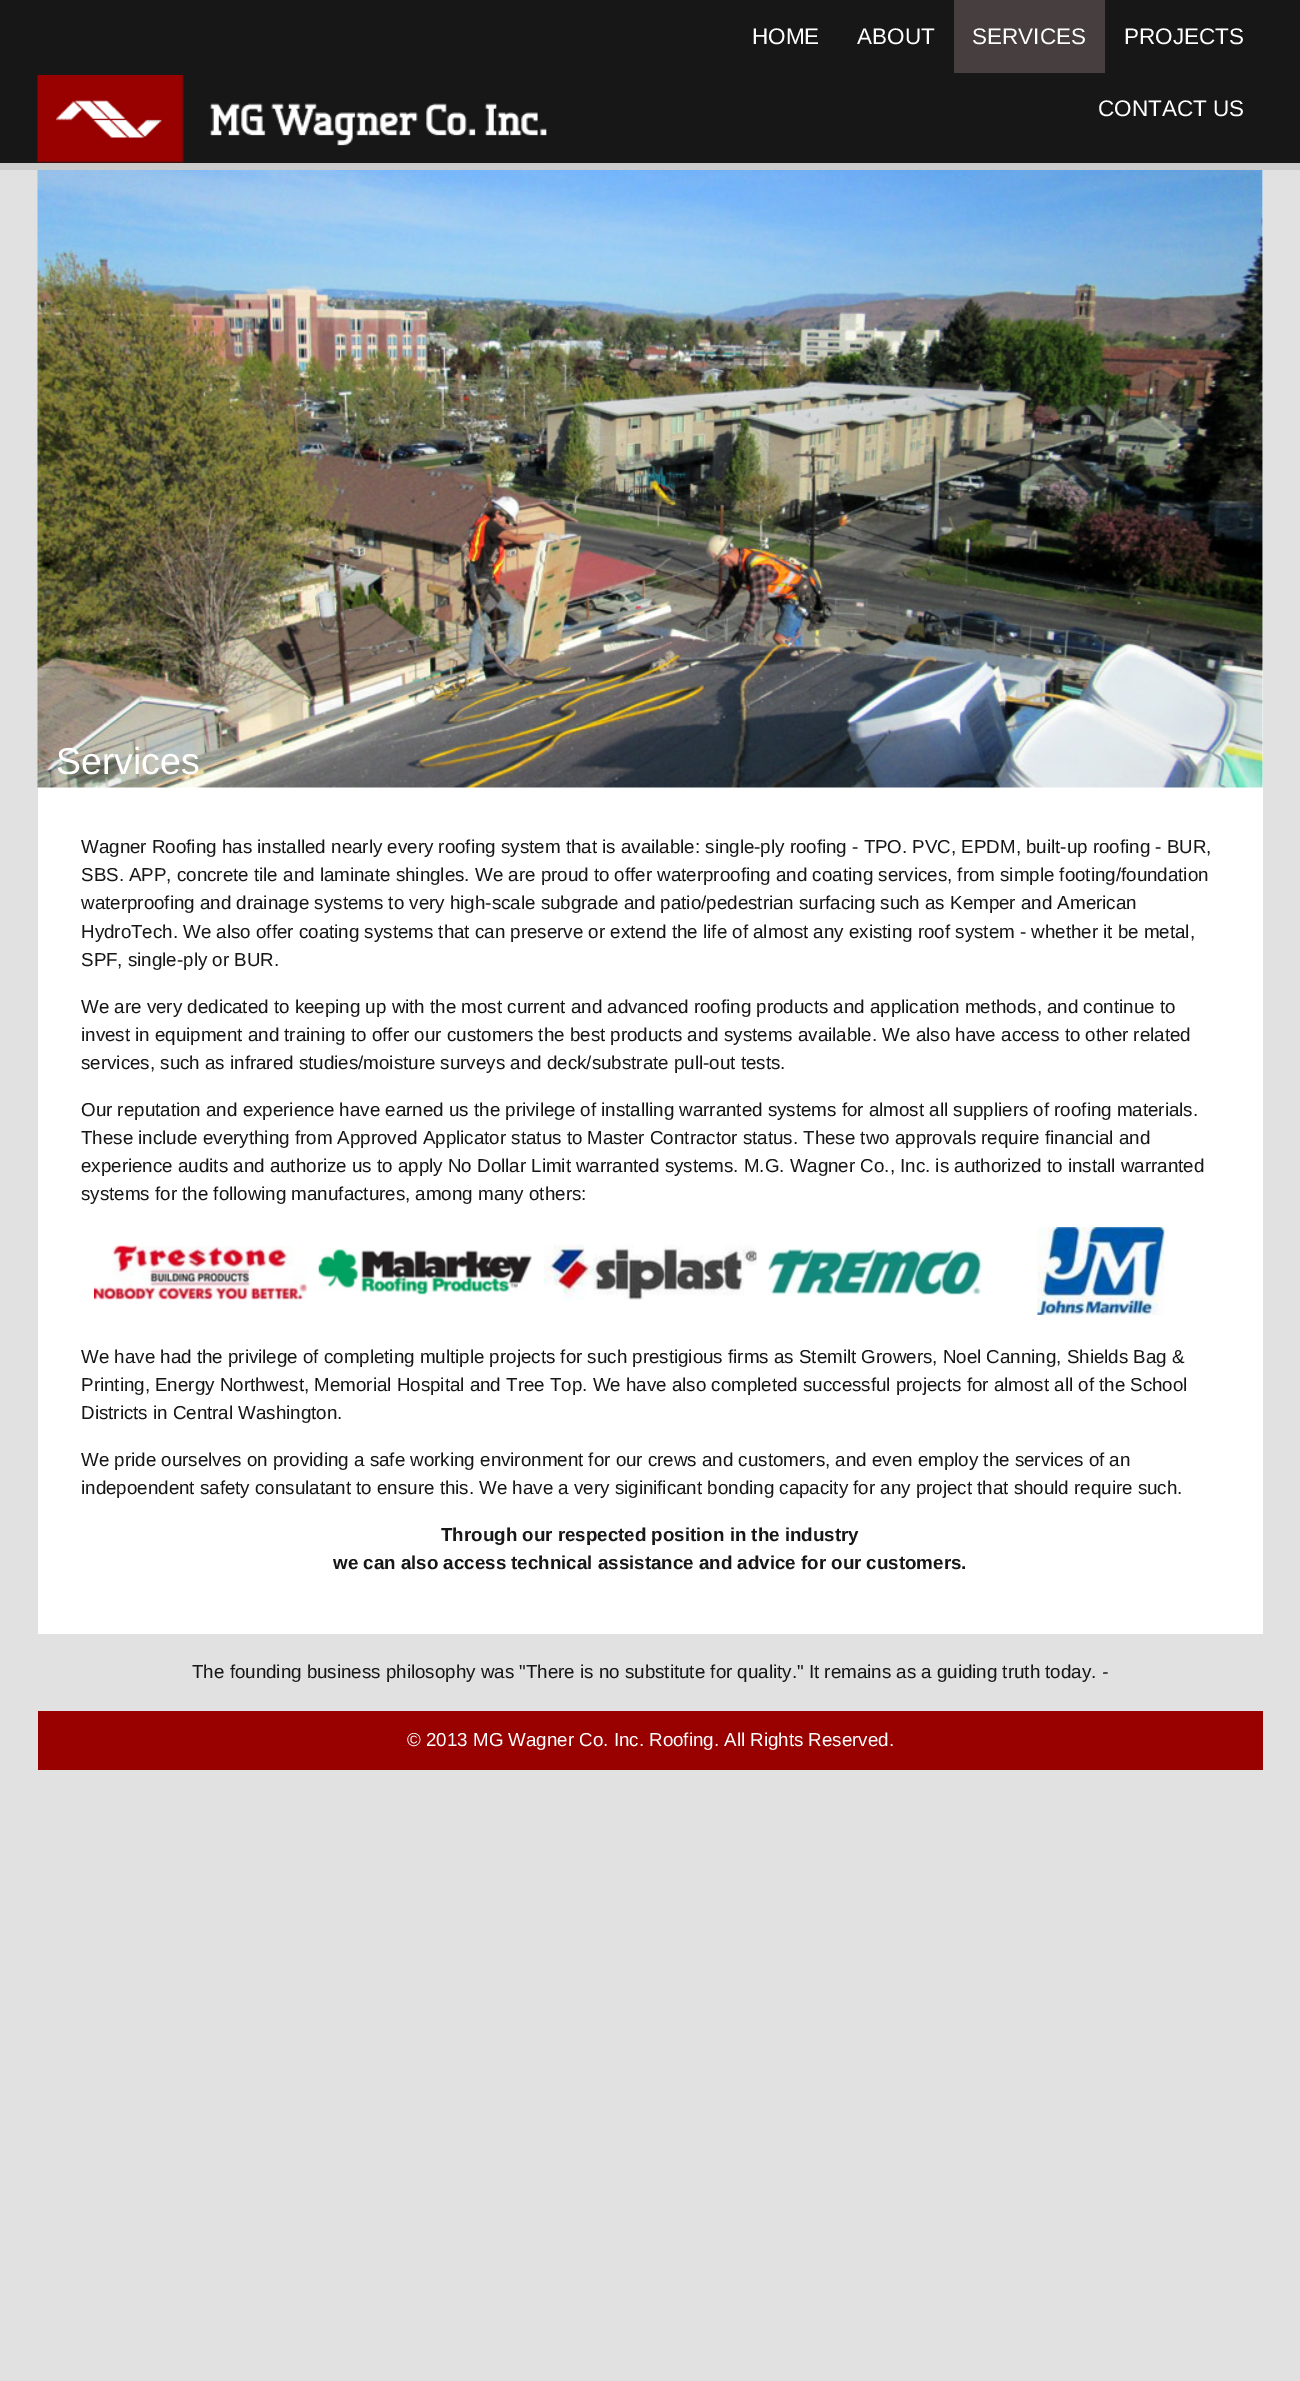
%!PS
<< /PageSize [1300 2381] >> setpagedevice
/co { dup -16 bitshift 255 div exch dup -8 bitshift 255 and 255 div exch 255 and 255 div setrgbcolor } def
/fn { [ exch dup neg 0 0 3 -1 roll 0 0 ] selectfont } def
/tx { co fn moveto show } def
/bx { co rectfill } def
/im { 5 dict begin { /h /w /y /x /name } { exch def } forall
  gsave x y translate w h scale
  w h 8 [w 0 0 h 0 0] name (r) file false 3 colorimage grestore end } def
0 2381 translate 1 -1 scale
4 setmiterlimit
0 0 1300 2381 16#E1E1E1 bx
0 163 1300 7 16#CCCCCC bx
0 0 1300 163 16#171717 bx
(media/1.raw) 37 75 510 88 im
954 0 151 73 16#473F3F bx
38 170 1225 1464 16#FFFFFF bx
(media/2.raw) 37 170 1226 618 im
(media/3.raw) 94 1245 213 55 im
(media/4.raw) 318 1249 214 46 im
(media/5.raw) 543 1244 214 56 im
(media/6.raw) 768 1249 214 46 im
(media/7.raw) 1037 1227 128 88 im
38 1711 1225 59 16#990000 bx
(HOME) 752 44 /LiberationSans-Regular 22.5 16#FFFFFF tx
(ABOUT) 857 44 /LiberationSans-Regular 22.5 16#FFFFFF tx
(SERVICES) 972 44 /LiberationSans-Regular 22.5 16#FFFFFF tx
(PROJECTS) 1124 44 /LiberationSans-Regular 22.5 16#FFFFFF tx
(CONTACT US) 1098 116 /LiberationSans-Regular 22.5 16#FFFFFF tx
(Services) 56 774 /LiberationSans-Regular 37.5 16#FFFFFF tx
(Wagner Roofing has installed nearly every roofing system that is available: single-ply roofing - TPO. PVC, EPDM, built-up roofing - BUR,) 81 853 /LiberationSans-Regular 18.75 16#171717 tx
(SBS. APP, concrete tile and laminate shingles. We are proud to offer waterproofing and coating services, from simple footing/foundation) 81 881 /LiberationSans-Regular 18.75 16#171717 tx
(waterproofing and drainage systems to very high-scale subgrade and patio/pedestrian surfacing such as Kemper and American) 81 909 /LiberationSans-Regular 18.75 16#171717 tx
(HydroTech. We also offer coating systems that can preserve or extend the life of almost any existing roof system - whether it be metal,) 81 938 /LiberationSans-Regular 18.75 16#171717 tx
(SPF, single-ply or BUR.) 81 966 /LiberationSans-Regular 18.75 16#171717 tx
(We are very dedicated to keeping up with the most current and advanced roofing products and application methods, and continue to) 81 1013 /LiberationSans-Regular 18.75 16#171717 tx
(invest in equipment and training to offer our customers the best products and systems available. We also have access to other related) 81 1041 /LiberationSans-Regular 18.75 16#171717 tx
(services, such as infrared studies/moisture surveys and deck/substrate pull-out tests.) 81 1069 /LiberationSans-Regular 18.75 16#171717 tx
(Our reputation and experience have earned us the privilege of installing warranted systems for almost all suppliers of roofing materials.) 81 1116 /LiberationSans-Regular 18.75 16#171717 tx
(These include everything from Approved Applicator status to Master Contractor status. These two approvals require financial and) 81 1144 /LiberationSans-Regular 18.75 16#171717 tx
(experience audits and authorize us to apply No Dollar Limit warranted systems. M.G. Wagner Co., Inc. is authorized to install warranted) 81 1172 /LiberationSans-Regular 18.75 16#171717 tx
(systems for the following manufactures, among many others:) 81 1200 /LiberationSans-Regular 18.75 16#171717 tx
(We have had the privilege of completing multiple projects for such prestigious firms as Stemilt Growers, Noel Canning, Shields Bag &) 81 1363 /LiberationSans-Regular 18.75 16#171717 tx
(Printing, Energy Northwest, Memorial Hospital and Tree Top. We have also completed successful projects for almost all of the School) 81 1391 /LiberationSans-Regular 18.75 16#171717 tx
(Districts in Central Washington.) 81 1419 /LiberationSans-Regular 18.75 16#171717 tx
(We pride ourselves on providing a safe working environment for our crews and customers, and even employ the services of an) 81 1466 /LiberationSans-Regular 18.75 16#171717 tx
(indepoendent safety consulatant to ensure this. We have a very siginificant bonding capacity for any project that should require such.) 81 1494 /LiberationSans-Regular 18.75 16#171717 tx
(Through our respected position in the industry) 441 1541 /LiberationSans-Bold 18.75 16#171717 tx
(we can also access technical assistance and advice for our customers.) 333 1569 /LiberationSans-Bold 18.75 16#171717 tx
(The founding business philosophy was "There is no substitute for quality." It remains as a guiding truth today.) 192 1678 /LiberationSans-Regular 18.75 16#171717 tx
(-) 1102 1678 /LiberationSans-Italic 18.75 16#171717 tx
(© 2013 MG Wagner Co. Inc. Roofing. All Rights Reserved.) 407 1746 /LiberationSans-Regular 18.75 16#FFFFFF tx
showpage
